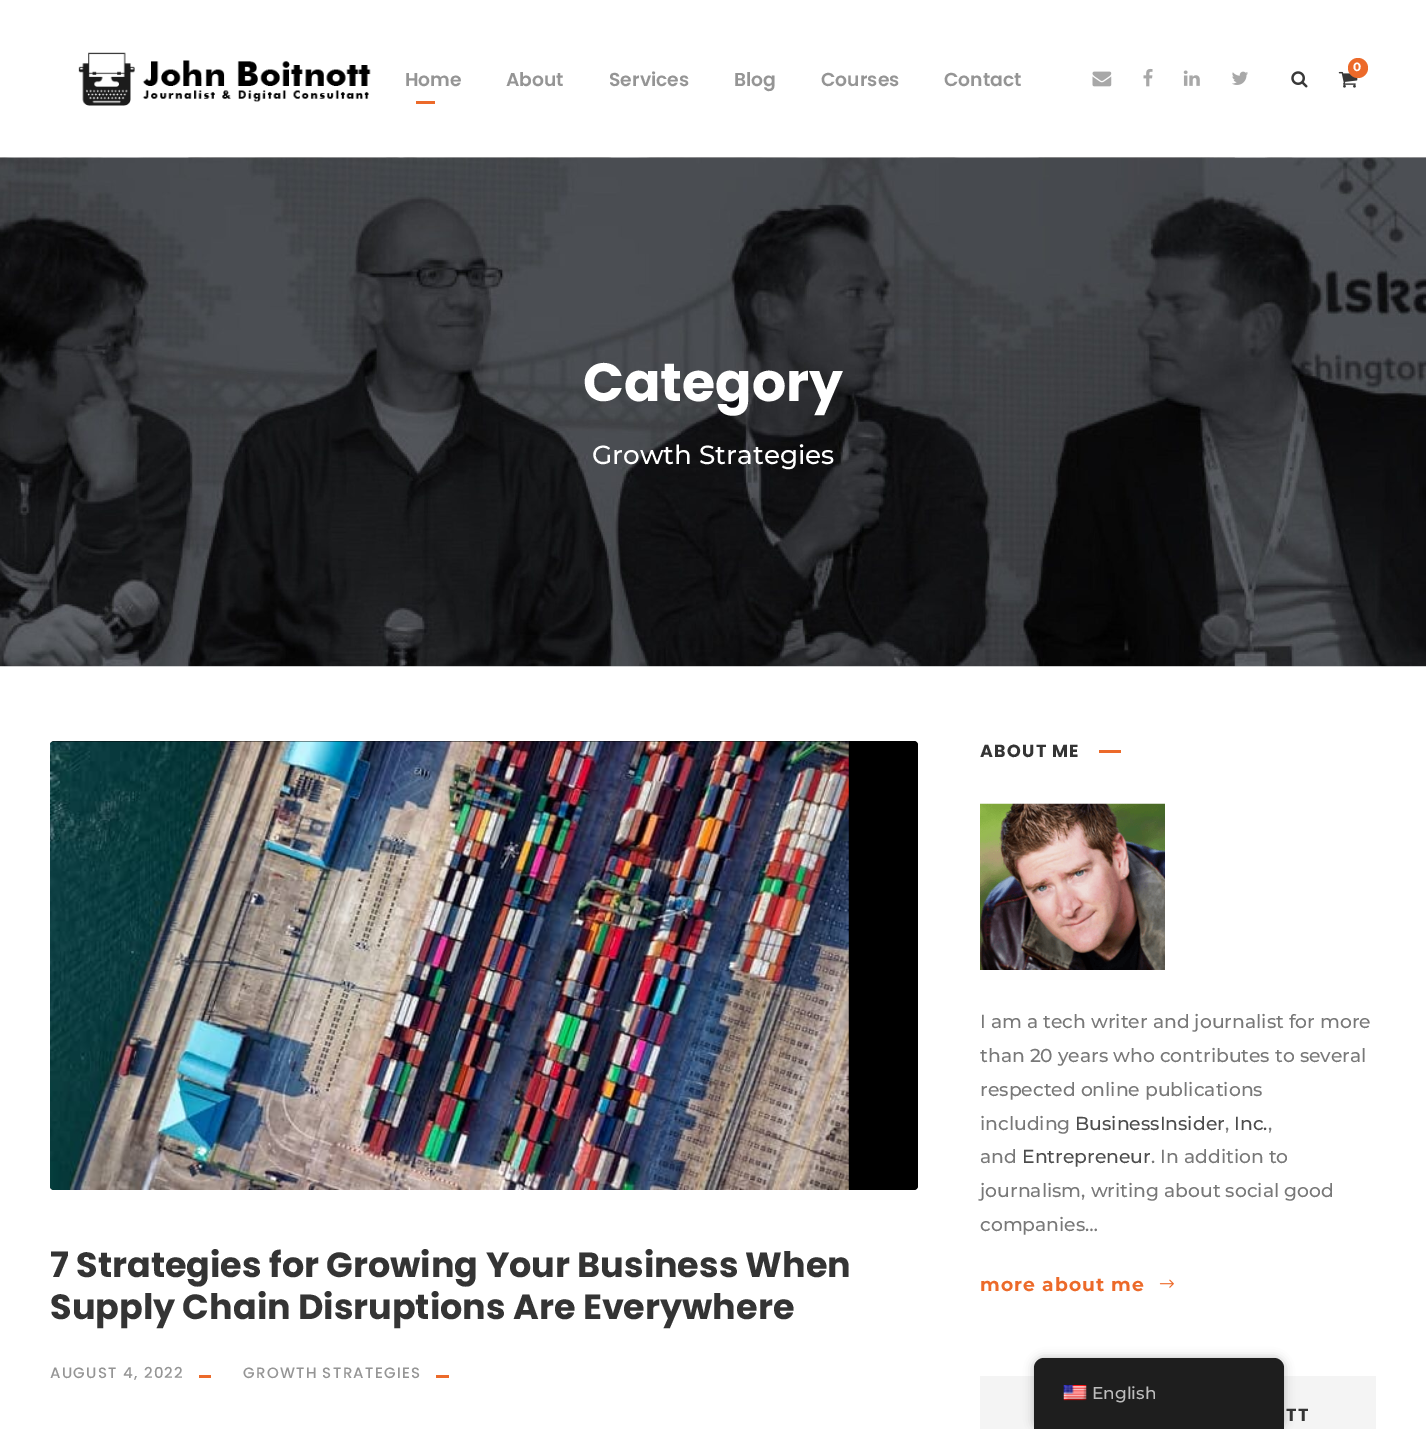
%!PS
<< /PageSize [1426 1429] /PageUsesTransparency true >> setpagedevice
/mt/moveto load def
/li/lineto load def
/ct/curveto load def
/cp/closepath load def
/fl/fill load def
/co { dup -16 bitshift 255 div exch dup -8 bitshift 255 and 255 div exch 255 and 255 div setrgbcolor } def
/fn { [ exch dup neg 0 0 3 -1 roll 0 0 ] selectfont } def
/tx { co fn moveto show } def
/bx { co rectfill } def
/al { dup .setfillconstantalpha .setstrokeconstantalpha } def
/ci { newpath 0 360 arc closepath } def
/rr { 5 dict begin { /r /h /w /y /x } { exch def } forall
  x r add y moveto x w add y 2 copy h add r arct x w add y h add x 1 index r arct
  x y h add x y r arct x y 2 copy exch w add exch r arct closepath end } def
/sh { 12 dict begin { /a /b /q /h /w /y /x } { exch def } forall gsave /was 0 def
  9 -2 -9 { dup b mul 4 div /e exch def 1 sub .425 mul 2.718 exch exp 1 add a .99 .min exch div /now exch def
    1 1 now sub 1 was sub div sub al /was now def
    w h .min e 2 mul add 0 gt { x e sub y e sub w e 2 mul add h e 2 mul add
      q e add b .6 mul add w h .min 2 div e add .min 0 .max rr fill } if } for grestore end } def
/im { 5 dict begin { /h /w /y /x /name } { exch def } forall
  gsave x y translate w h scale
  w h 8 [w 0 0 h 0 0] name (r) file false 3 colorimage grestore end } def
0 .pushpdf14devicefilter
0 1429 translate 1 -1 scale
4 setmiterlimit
0 0 1426 1429 16#FFFFFF bx
(media/1.raw) 78 52 293 54 im
(media/2.raw) 1338 71 20 17 im
16#EC6A2A co
1358 68 10 ci fl
(media/3.raw) 1092 71 20 16 im
(media/4.raw) 1143 68 10 19 im
(media/5.raw) 1183 70 17 16 im
(media/6.raw) 1232 71 16 14 im
(media/7.raw) 1291 71 17 17 im
416 101 19 3 16#EC6A2A bx
(media/8.raw) 0 157 1426 510 im
16#000000 co
50 741 868 449 4 rr fl
(media/9.raw) 50 741 799 449 im
199 1375 12 3 16#EC6A2A bx
436 1375 13 3 16#EC6A2A bx
1099 750 22 3 16#EC6A2A bx
(media/10.raw) 980 803 185 167 im
(media/11.raw) 1159 1279 15 9 im
980 1376 396 53 16#F4F4F4 bx
16#000000 co
1034 1358 250 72 10 5 .25 sh
16#1E1E1E co
1044 1358 mt 1274 1358 li 1279.5 1358 1284 1362.5 1284 1368 ct 1284 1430 li 1034 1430 li 1034 1368 li 1034 1362.5 1038.5 1358 1044 1358 ct cp fl
(media/12.raw) 1063 1385 24 16 im
(0) 1353 71 /Montserrat-Bold 12 16#FFFFFF tx
(Home) 405 86 /Poppins-SemiBold 18.75 16#959595 tx
(About) 506 86 /Poppins-SemiBold 18.75 16#959595 tx
(Services) 609 86 /Poppins-SemiBold 18.75 16#959595 tx
(Blog) 734 86 /Poppins-SemiBold 18.75 16#959595 tx
(Courses) 821 86 /Poppins-SemiBold 18.75 16#959595 tx
(Contact) 944 86 /Poppins-SemiBold 18.75 16#959595 tx
(Category) 583 401 /Poppins-Bold 53.75 16#FFFFFF tx
(Growth Strategies) 592 464 /Montserrat-Medium 26.25 16#FFFFFF tx
(7 Strategies for Growing Your Business When) 50 1277 /Poppins-Bold 35 16#343434 tx
(Supply Chain Disruptions Are Everywhere) 50 1319 /Poppins-Bold 35 16#343434 tx
/Poppins-Medium 15 fn
16#959595 co
50 1378 mt 1.25 0 (AUGUST 4, 2022) ashow
243 1378 mt 1.25 0 (GROWTH STRATEGIES) ashow
/Poppins-Bold 17.5 fn
16#343434 co
980 757 mt 1.25 0 (ABOUT ME) ashow
(I am a tech writer and journalist for more) 980 1028 /Montserrat-Medium 18.75 16#787878 tx
(than 20 years who contributes to several) 980 1062 /Montserrat-Medium 18.75 16#787878 tx
(respected online publications) 980 1096 /Montserrat-Medium 18.75 16#787878 tx
(including) 980 1130 /Montserrat-Medium 18.75 16#787878 tx
(BusinessInsider) 1075 1130 /Montserrat-Medium 18.75 16#4C4C4C tx
(,) 1225 1130 /Montserrat-Medium 18.75 16#787878 tx
(Inc.) 1234 1130 /Montserrat-Medium 18.75 16#4C4C4C tx
(,) 1268 1130 /Montserrat-Medium 18.75 16#787878 tx
(and) 980 1163 /Montserrat-Medium 18.75 16#787878 tx
(Entrepreneur) 1022 1163 /Montserrat-Medium 18.75 16#4C4C4C tx
(. In addition to) 1151 1163 /Montserrat-Medium 18.75 16#787878 tx
(journalism, writing about social good) 980 1197 /Montserrat-Medium 18.75 16#787878 tx
(companies…) 980 1231 /Montserrat-Medium 18.75 16#787878 tx
/Montserrat-Bold 18.75 fn
16#EC6A2A co
980 1291 mt 1 0 (more about me) ashow
/Poppins-Bold 17.5 fn
16#343434 co
1286 1421 mt 2 0 (TT) ashow
(English) 1092 1399 /Montserrat-Medium 17 16#BDBDBD tx
.poppdf14devicefilter showpage
